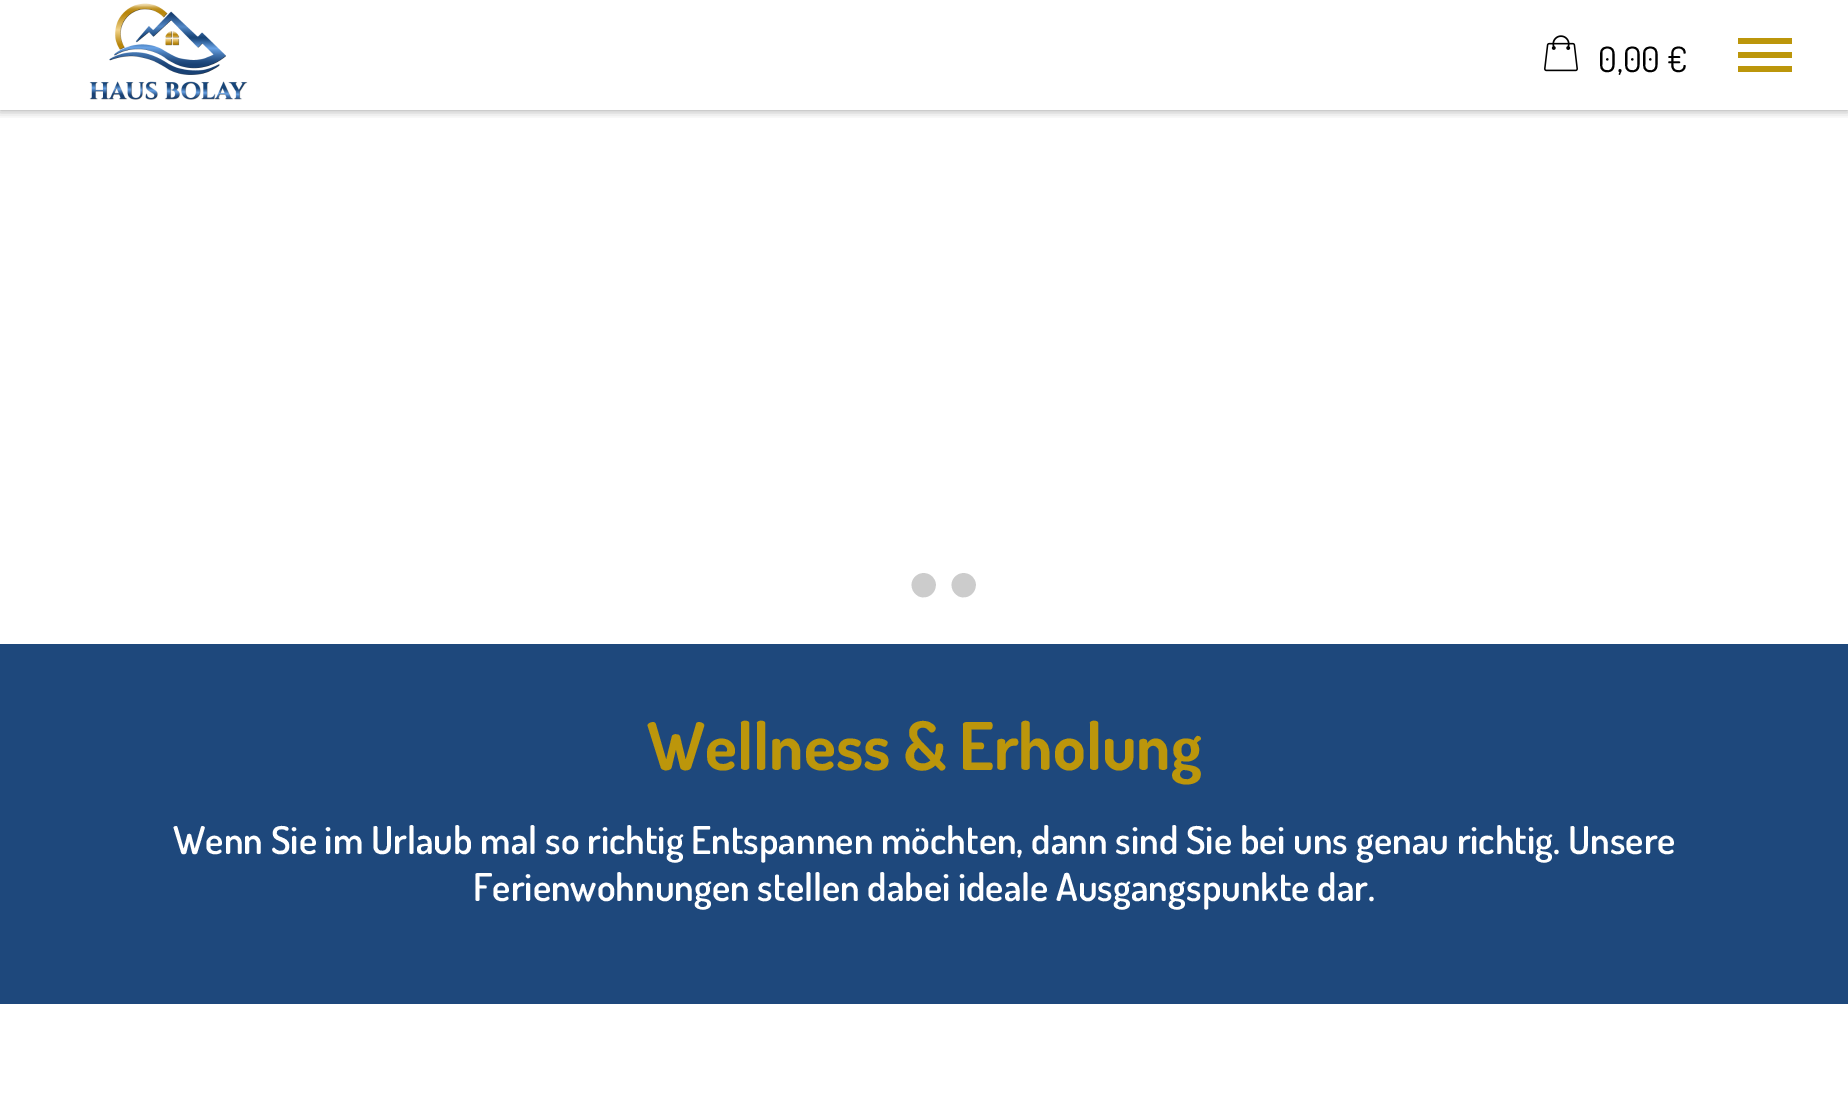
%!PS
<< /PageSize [1848 1118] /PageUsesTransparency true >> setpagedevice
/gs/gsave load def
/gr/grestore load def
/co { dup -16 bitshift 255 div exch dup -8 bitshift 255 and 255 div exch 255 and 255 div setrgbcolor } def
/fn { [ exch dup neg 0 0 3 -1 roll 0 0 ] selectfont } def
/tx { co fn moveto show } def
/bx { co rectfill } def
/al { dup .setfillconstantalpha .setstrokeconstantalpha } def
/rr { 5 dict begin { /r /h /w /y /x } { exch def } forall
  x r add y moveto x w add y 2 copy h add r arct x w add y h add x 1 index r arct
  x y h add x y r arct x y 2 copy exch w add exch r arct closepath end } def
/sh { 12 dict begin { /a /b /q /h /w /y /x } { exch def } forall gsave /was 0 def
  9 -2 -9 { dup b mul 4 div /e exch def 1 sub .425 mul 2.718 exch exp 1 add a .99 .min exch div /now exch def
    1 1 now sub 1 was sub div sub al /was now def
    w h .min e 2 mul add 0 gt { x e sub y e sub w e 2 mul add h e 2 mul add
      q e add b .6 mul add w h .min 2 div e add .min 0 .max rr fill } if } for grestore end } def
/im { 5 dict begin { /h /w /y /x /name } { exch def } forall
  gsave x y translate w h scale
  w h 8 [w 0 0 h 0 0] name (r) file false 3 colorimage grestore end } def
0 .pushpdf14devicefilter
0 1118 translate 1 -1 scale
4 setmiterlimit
0 0 1848 1118 16#FFFFFF bx
gs
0 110 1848 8 rectclip
16#000000 co
0 0 1848 110 0 5 .4 sh
gr
(media/1.raw) 89 3 159 97 im
(media/2.raw) 1544 35 34 37 im
1738 38 54 6 16#BC960B bx
1738 52 54 6 16#BC960B bx
1738 66 54 6 16#BC960B bx
0 644 1848 360 16#1E487C bx
(0,00 €) 1598 72 /Dosis-Regular 35 16#000000 tx
(•) 908 615 /LiberationSans-Regular 90 16#CCCCCC tx
(•) 948 615 /LiberationSans-Regular 90 16#CCCCCC tx
(Wellness & Erholung) 647 770 /Dosis-Bold 65.75 16#BC960B tx
(Wenn Sie im Urlaub mal so richtig Entspannen möchten, dann sind Sie bei uns genau richtig. Unsere) 173 854 /Dosis-SemiBold 38.4 16#FFFFFF tx
(Ferienwohnungen stellen dabei ideale Ausgangspunkte dar.) 473 901 /Dosis-SemiBold 38.4 16#FFFFFF tx
.poppdf14devicefilter showpage
